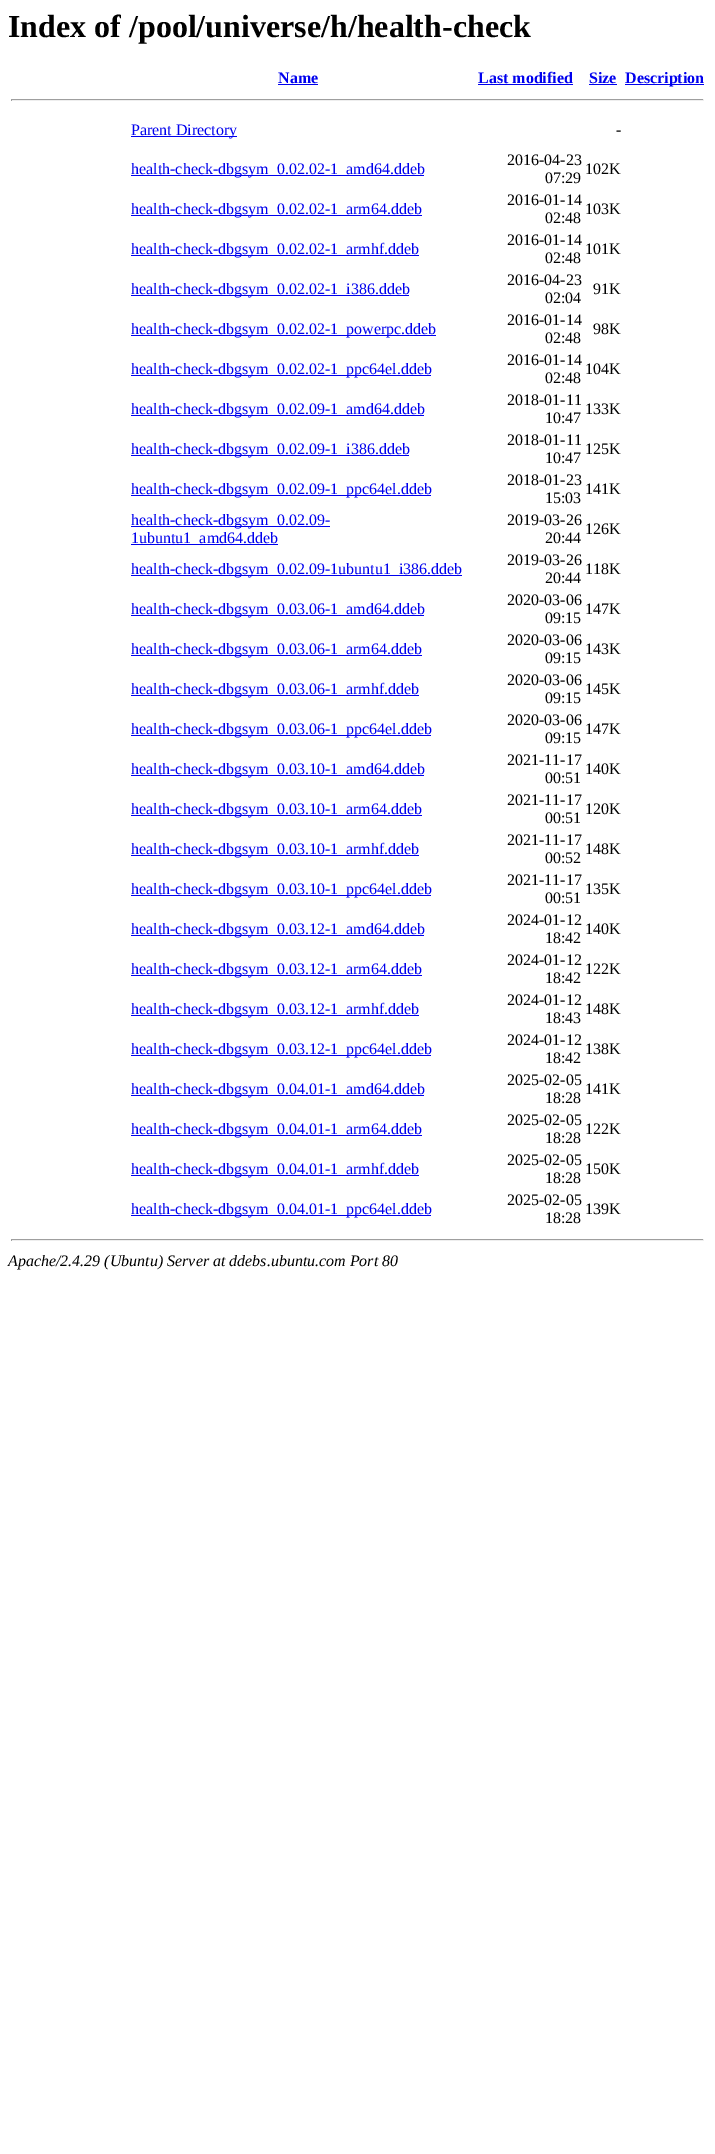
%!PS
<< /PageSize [715 2154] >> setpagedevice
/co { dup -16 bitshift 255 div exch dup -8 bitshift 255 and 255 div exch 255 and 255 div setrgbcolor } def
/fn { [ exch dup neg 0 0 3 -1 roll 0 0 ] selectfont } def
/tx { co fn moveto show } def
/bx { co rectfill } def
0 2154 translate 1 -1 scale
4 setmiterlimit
0 0 715 2154 16#FFFFFF bx
278 84 40 1 16#0000EE bx
478 84 95 1 16#0000EE bx
589 84 28 1 16#0000EE bx
625 84 79 1 16#0000EE bx
11 99 693 1 16#9F9F9F bx
703 99 1 2 16#EEEEEE bx
11 100 693 1 16#EEEEEE bx
11 99 1 2 16#9F9F9F bx
131 136 106 1 16#0000EE bx
131 175 293 1 16#0000EE bx
131 215 291 1 16#0000EE bx
131 255 288 1 16#0000EE bx
131 295 278 1 16#0000EE bx
131 335 305 1 16#0000EE bx
131 375 300 1 16#0000EE bx
131 415 293 1 16#0000EE bx
131 455 278 1 16#0000EE bx
131 495 300 1 16#0000EE bx
131 526 199 1 16#0000EE bx
131 544 147 1 16#0000EE bx
131 575 331 1 16#0000EE bx
131 615 293 1 16#0000EE bx
131 655 291 1 16#0000EE bx
131 695 288 1 16#0000EE bx
131 735 300 1 16#0000EE bx
131 775 293 1 16#0000EE bx
131 815 291 1 16#0000EE bx
131 855 288 1 16#0000EE bx
131 895 300 1 16#0000EE bx
131 935 293 1 16#0000EE bx
131 975 291 1 16#0000EE bx
131 1015 288 1 16#0000EE bx
131 1055 300 1 16#0000EE bx
131 1095 293 1 16#0000EE bx
131 1135 291 1 16#0000EE bx
131 1175 288 1 16#0000EE bx
131 1215 300 1 16#0000EE bx
11 1239 693 1 16#9F9F9F bx
703 1239 1 2 16#EEEEEE bx
11 1240 693 1 16#EEEEEE bx
11 1239 1 2 16#9F9F9F bx
(Index of /pool/universe/h/health-check) 8 37 /LiberationSerif-Bold 32 16#000000 tx
(Name) 278 83 /LiberationSerif-Bold 16 16#0000EE tx
(Last modified) 478 83 /LiberationSerif-Bold 16 16#0000EE tx
(Size) 589 83 /LiberationSerif-Bold 16 16#0000EE tx
(Description) 625 83 /LiberationSerif-Bold 16 16#0000EE tx
(Parent Directory) 131 135 /LiberationSerif-Regular 16 16#0000EE tx
(-) 616 135 /LiberationSerif-Regular 16 16#000000 tx
(health-check-dbgsym_0.02.02-1_amd64.ddeb) 131 174 /LiberationSerif-Regular 16 16#0000EE tx
(2016-04-23) 507 165 /LiberationSerif-Regular 16 16#000000 tx
(07:29) 545 183 /LiberationSerif-Regular 16 16#000000 tx
(102K) 585 174 /LiberationSerif-Regular 16 16#000000 tx
(health-check-dbgsym_0.02.02-1_arm64.ddeb) 131 214 /LiberationSerif-Regular 16 16#0000EE tx
(2016-01-14) 507 205 /LiberationSerif-Regular 16 16#000000 tx
(02:48) 545 223 /LiberationSerif-Regular 16 16#000000 tx
(103K) 585 214 /LiberationSerif-Regular 16 16#000000 tx
(health-check-dbgsym_0.02.02-1_armhf.ddeb) 131 254 /LiberationSerif-Regular 16 16#0000EE tx
(2016-01-14) 507 245 /LiberationSerif-Regular 16 16#000000 tx
(02:48) 545 263 /LiberationSerif-Regular 16 16#000000 tx
(101K) 585 254 /LiberationSerif-Regular 16 16#000000 tx
(health-check-dbgsym_0.02.02-1_i386.ddeb) 131 294 /LiberationSerif-Regular 16 16#0000EE tx
(2016-04-23) 507 285 /LiberationSerif-Regular 16 16#000000 tx
(02:04) 545 303 /LiberationSerif-Regular 16 16#000000 tx
(91K) 593 294 /LiberationSerif-Regular 16 16#000000 tx
(health-check-dbgsym_0.02.02-1_powerpc.ddeb) 131 334 /LiberationSerif-Regular 16 16#0000EE tx
(2016-01-14) 507 325 /LiberationSerif-Regular 16 16#000000 tx
(02:48) 545 343 /LiberationSerif-Regular 16 16#000000 tx
(98K) 593 334 /LiberationSerif-Regular 16 16#000000 tx
(health-check-dbgsym_0.02.02-1_ppc64el.ddeb) 131 374 /LiberationSerif-Regular 16 16#0000EE tx
(2016-01-14) 507 365 /LiberationSerif-Regular 16 16#000000 tx
(02:48) 545 383 /LiberationSerif-Regular 16 16#000000 tx
(104K) 585 374 /LiberationSerif-Regular 16 16#000000 tx
(health-check-dbgsym_0.02.09-1_amd64.ddeb) 131 414 /LiberationSerif-Regular 16 16#0000EE tx
(2018-01-11) 507 405 /LiberationSerif-Regular 16 16#000000 tx
(10:47) 545 423 /LiberationSerif-Regular 16 16#000000 tx
(133K) 585 414 /LiberationSerif-Regular 16 16#000000 tx
(health-check-dbgsym_0.02.09-1_i386.ddeb) 131 454 /LiberationSerif-Regular 16 16#0000EE tx
(2018-01-11) 507 445 /LiberationSerif-Regular 16 16#000000 tx
(10:47) 545 463 /LiberationSerif-Regular 16 16#000000 tx
(125K) 585 454 /LiberationSerif-Regular 16 16#000000 tx
(health-check-dbgsym_0.02.09-1_ppc64el.ddeb) 131 494 /LiberationSerif-Regular 16 16#0000EE tx
(2018-01-23) 507 485 /LiberationSerif-Regular 16 16#000000 tx
(15:03) 545 503 /LiberationSerif-Regular 16 16#000000 tx
(141K) 585 494 /LiberationSerif-Regular 16 16#000000 tx
(health-check-dbgsym_0.02.09-) 131 525 /LiberationSerif-Regular 16 16#0000EE tx
(1ubuntu1_amd64.ddeb) 131 543 /LiberationSerif-Regular 16 16#0000EE tx
(2019-03-26) 507 525 /LiberationSerif-Regular 16 16#000000 tx
(20:44) 545 543 /LiberationSerif-Regular 16 16#000000 tx
(126K) 585 534 /LiberationSerif-Regular 16 16#000000 tx
(health-check-dbgsym_0.02.09-1ubuntu1_i386.ddeb) 131 574 /LiberationSerif-Regular 16 16#0000EE tx
(2019-03-26) 507 565 /LiberationSerif-Regular 16 16#000000 tx
(20:44) 545 583 /LiberationSerif-Regular 16 16#000000 tx
(118K) 585 574 /LiberationSerif-Regular 16 16#000000 tx
(health-check-dbgsym_0.03.06-1_amd64.ddeb) 131 614 /LiberationSerif-Regular 16 16#0000EE tx
(2020-03-06) 507 605 /LiberationSerif-Regular 16 16#000000 tx
(09:15) 545 623 /LiberationSerif-Regular 16 16#000000 tx
(147K) 585 614 /LiberationSerif-Regular 16 16#000000 tx
(health-check-dbgsym_0.03.06-1_arm64.ddeb) 131 654 /LiberationSerif-Regular 16 16#0000EE tx
(2020-03-06) 507 645 /LiberationSerif-Regular 16 16#000000 tx
(09:15) 545 663 /LiberationSerif-Regular 16 16#000000 tx
(143K) 585 654 /LiberationSerif-Regular 16 16#000000 tx
(health-check-dbgsym_0.03.06-1_armhf.ddeb) 131 694 /LiberationSerif-Regular 16 16#0000EE tx
(2020-03-06) 507 685 /LiberationSerif-Regular 16 16#000000 tx
(09:15) 545 703 /LiberationSerif-Regular 16 16#000000 tx
(145K) 585 694 /LiberationSerif-Regular 16 16#000000 tx
(health-check-dbgsym_0.03.06-1_ppc64el.ddeb) 131 734 /LiberationSerif-Regular 16 16#0000EE tx
(2020-03-06) 507 725 /LiberationSerif-Regular 16 16#000000 tx
(09:15) 545 743 /LiberationSerif-Regular 16 16#000000 tx
(147K) 585 734 /LiberationSerif-Regular 16 16#000000 tx
(health-check-dbgsym_0.03.10-1_amd64.ddeb) 131 774 /LiberationSerif-Regular 16 16#0000EE tx
(2021-11-17) 507 765 /LiberationSerif-Regular 16 16#000000 tx
(00:51) 545 783 /LiberationSerif-Regular 16 16#000000 tx
(140K) 585 774 /LiberationSerif-Regular 16 16#000000 tx
(health-check-dbgsym_0.03.10-1_arm64.ddeb) 131 814 /LiberationSerif-Regular 16 16#0000EE tx
(2021-11-17) 507 805 /LiberationSerif-Regular 16 16#000000 tx
(00:51) 545 823 /LiberationSerif-Regular 16 16#000000 tx
(120K) 585 814 /LiberationSerif-Regular 16 16#000000 tx
(health-check-dbgsym_0.03.10-1_armhf.ddeb) 131 854 /LiberationSerif-Regular 16 16#0000EE tx
(2021-11-17) 507 845 /LiberationSerif-Regular 16 16#000000 tx
(00:52) 545 863 /LiberationSerif-Regular 16 16#000000 tx
(148K) 585 854 /LiberationSerif-Regular 16 16#000000 tx
(health-check-dbgsym_0.03.10-1_ppc64el.ddeb) 131 894 /LiberationSerif-Regular 16 16#0000EE tx
(2021-11-17) 507 885 /LiberationSerif-Regular 16 16#000000 tx
(00:51) 545 903 /LiberationSerif-Regular 16 16#000000 tx
(135K) 585 894 /LiberationSerif-Regular 16 16#000000 tx
(health-check-dbgsym_0.03.12-1_amd64.ddeb) 131 934 /LiberationSerif-Regular 16 16#0000EE tx
(2024-01-12) 507 925 /LiberationSerif-Regular 16 16#000000 tx
(18:42) 545 943 /LiberationSerif-Regular 16 16#000000 tx
(140K) 585 934 /LiberationSerif-Regular 16 16#000000 tx
(health-check-dbgsym_0.03.12-1_arm64.ddeb) 131 974 /LiberationSerif-Regular 16 16#0000EE tx
(2024-01-12) 507 965 /LiberationSerif-Regular 16 16#000000 tx
(18:42) 545 983 /LiberationSerif-Regular 16 16#000000 tx
(122K) 585 974 /LiberationSerif-Regular 16 16#000000 tx
(health-check-dbgsym_0.03.12-1_armhf.ddeb) 131 1014 /LiberationSerif-Regular 16 16#0000EE tx
(2024-01-12) 507 1005 /LiberationSerif-Regular 16 16#000000 tx
(18:43) 545 1023 /LiberationSerif-Regular 16 16#000000 tx
(148K) 585 1014 /LiberationSerif-Regular 16 16#000000 tx
(health-check-dbgsym_0.03.12-1_ppc64el.ddeb) 131 1054 /LiberationSerif-Regular 16 16#0000EE tx
(2024-01-12) 507 1045 /LiberationSerif-Regular 16 16#000000 tx
(18:42) 545 1063 /LiberationSerif-Regular 16 16#000000 tx
(138K) 585 1054 /LiberationSerif-Regular 16 16#000000 tx
(health-check-dbgsym_0.04.01-1_amd64.ddeb) 131 1094 /LiberationSerif-Regular 16 16#0000EE tx
(2025-02-05) 507 1085 /LiberationSerif-Regular 16 16#000000 tx
(18:28) 545 1103 /LiberationSerif-Regular 16 16#000000 tx
(141K) 585 1094 /LiberationSerif-Regular 16 16#000000 tx
(health-check-dbgsym_0.04.01-1_arm64.ddeb) 131 1134 /LiberationSerif-Regular 16 16#0000EE tx
(2025-02-05) 507 1125 /LiberationSerif-Regular 16 16#000000 tx
(18:28) 545 1143 /LiberationSerif-Regular 16 16#000000 tx
(122K) 585 1134 /LiberationSerif-Regular 16 16#000000 tx
(health-check-dbgsym_0.04.01-1_armhf.ddeb) 131 1174 /LiberationSerif-Regular 16 16#0000EE tx
(2025-02-05) 507 1165 /LiberationSerif-Regular 16 16#000000 tx
(18:28) 545 1183 /LiberationSerif-Regular 16 16#000000 tx
(150K) 585 1174 /LiberationSerif-Regular 16 16#000000 tx
(health-check-dbgsym_0.04.01-1_ppc64el.ddeb) 131 1214 /LiberationSerif-Regular 16 16#0000EE tx
(2025-02-05) 507 1205 /LiberationSerif-Regular 16 16#000000 tx
(18:28) 545 1223 /LiberationSerif-Regular 16 16#000000 tx
(139K) 585 1214 /LiberationSerif-Regular 16 16#000000 tx
(Apache/2.4.29 \(Ubuntu\) Server at ddebs.ubuntu.com Port 80) 8 1266 /LiberationSerif-Italic 16 16#000000 tx
showpage
